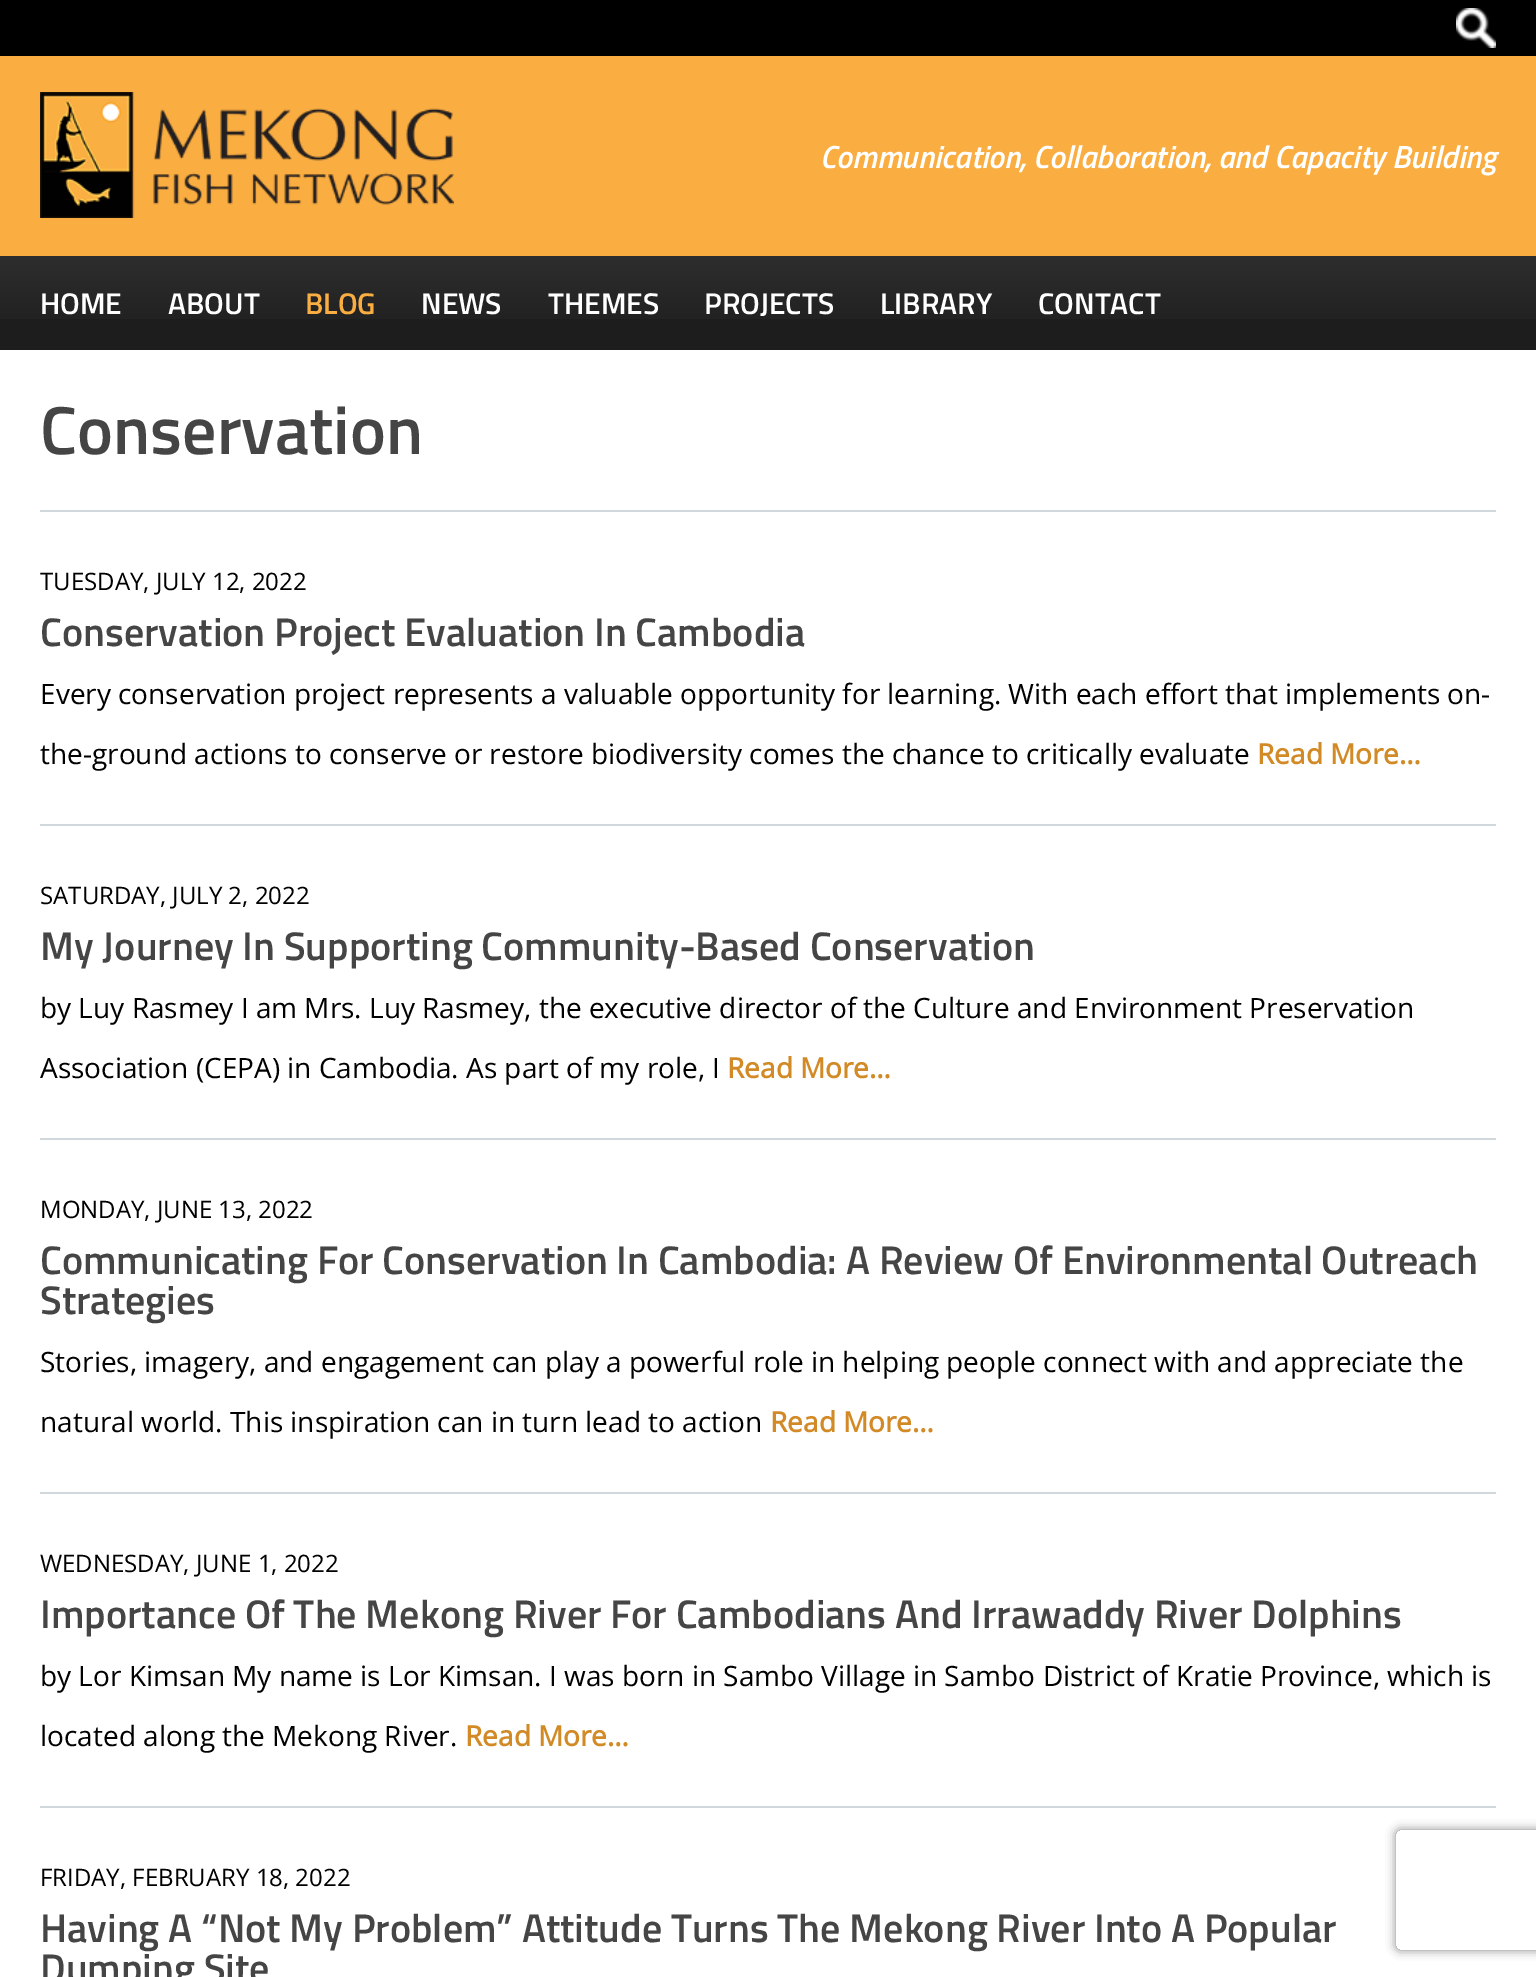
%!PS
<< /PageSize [1536 1977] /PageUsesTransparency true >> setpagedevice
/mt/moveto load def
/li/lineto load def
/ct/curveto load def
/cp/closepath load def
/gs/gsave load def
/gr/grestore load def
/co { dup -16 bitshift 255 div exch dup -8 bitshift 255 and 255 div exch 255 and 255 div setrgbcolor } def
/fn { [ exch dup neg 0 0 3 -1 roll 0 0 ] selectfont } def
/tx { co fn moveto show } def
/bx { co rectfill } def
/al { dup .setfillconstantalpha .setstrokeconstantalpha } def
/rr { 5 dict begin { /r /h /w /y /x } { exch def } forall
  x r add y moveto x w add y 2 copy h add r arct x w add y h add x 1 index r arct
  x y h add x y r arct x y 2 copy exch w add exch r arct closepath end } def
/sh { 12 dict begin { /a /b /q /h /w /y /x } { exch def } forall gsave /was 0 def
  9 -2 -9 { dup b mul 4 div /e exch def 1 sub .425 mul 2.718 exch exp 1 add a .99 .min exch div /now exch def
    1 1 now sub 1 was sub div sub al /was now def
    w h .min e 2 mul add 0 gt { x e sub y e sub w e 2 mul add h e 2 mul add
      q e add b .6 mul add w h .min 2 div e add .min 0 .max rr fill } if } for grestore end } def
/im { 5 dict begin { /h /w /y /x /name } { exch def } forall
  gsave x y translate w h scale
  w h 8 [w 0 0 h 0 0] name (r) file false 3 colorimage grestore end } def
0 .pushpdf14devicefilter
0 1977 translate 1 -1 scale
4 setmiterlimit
0 0 1536 1977 16#FFFFFF bx
0 0 1536 56 16#000000 bx
(media/1.raw) 1456 8 40 40 im
0 56 1536 200 16#FAAD41 bx
(media/2.raw) 40 92 414 126 im
0 319 1536 31 16#1D1D1D bx
(media/3.raw) 0 256 1536 63 im
40 510 1456 2 16#D1D8DB bx
40 824 1456 2 16#D1D8DB bx
40 1138 1456 2 16#D1D8DB bx
40 1492 1456 2 16#D1D8DB bx
40 1806 1456 2 16#D1D8DB bx
gs
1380 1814 mt 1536 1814 li 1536 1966 li 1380 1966 li cp 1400 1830 mt 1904 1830 li 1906 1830 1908 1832 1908 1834 ct 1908 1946 li 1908 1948 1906 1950 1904 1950 ct 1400 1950 li 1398 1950 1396 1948 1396 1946 ct 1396 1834 li 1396 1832 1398 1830 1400 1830 ct cp eoclip newpath
16#808080 co
1396 1830 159 120 4 5 1 sh
gr
(Communication, Collaboration, and Capacity Building) 820 168 /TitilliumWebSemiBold-SemiBoldItalic 32 16#FFFFFF tx
(HOME) 40 314 /TitilliumWebSemiBold-SemiBold 30 16#FFFFFF tx
(ABOUT) 168 314 /TitilliumWebSemiBold-SemiBold 30 16#FFFFFF tx
(BLOG) 305 314 /TitilliumWebSemiBold-SemiBold 30 16#FAAD41 tx
(NEWS) 421 314 /TitilliumWebSemiBold-SemiBold 30 16#FFFFFF tx
(THEMES) 548 314 /TitilliumWebSemiBold-SemiBold 30 16#FFFFFF tx
(PROJECTS) 704 314 /TitilliumWebSemiBold-SemiBold 30 16#FFFFFF tx
(LIBRARY) 880 314 /TitilliumWebSemiBold-SemiBold 30 16#FFFFFF tx
(CONTACT) 1038 314 /TitilliumWebSemiBold-SemiBold 30 16#FFFFFF tx
(Conservation) 40 454 /TitilliumWebSemiBold-SemiBold 68 16#454545 tx
(TUESDAY, JULY 12, 2022) 40 590 /OpenSans-Regular 24 16#000000 tx
(Conservation Project Evaluation In Cambodia) 40 646 /TitilliumWebSemiBold-SemiBold 40 16#454545 tx
(Every conservation project represents a valuable opportunity for learning. With each effort that implements on-) 40 704 /OpenSans-Regular 28 16#000000 tx
(the-ground actions to conserve or restore biodiversity comes the chance to critically evaluate) 40 764 /OpenSans-Regular 28 16#000000 tx
(Read More…) 1257 764 /OpenSans-Bold 28 16#D28A26 tx
(SATURDAY, JULY 2, 2022) 40 904 /OpenSans-Regular 24 16#000000 tx
(My Journey In Supporting Community-Based Conservation) 40 960 /TitilliumWebSemiBold-SemiBold 40 16#454545 tx
(by Luy Rasmey I am Mrs. Luy Rasmey, the executive director of the Culture and Environment Preservation) 40 1018 /OpenSans-Regular 28 16#000000 tx
(Association \(CEPA\) in Cambodia. As part of my role, I) 40 1078 /OpenSans-Regular 28 16#000000 tx
(Read More…) 727 1078 /OpenSans-Bold 28 16#D28A26 tx
(MONDAY, JUNE 13, 2022) 40 1218 /OpenSans-Regular 24 16#000000 tx
(Communicating For Conservation In Cambodia: A Review Of Environmental Outreach) 40 1274 /TitilliumWebSemiBold-SemiBold 40 16#454545 tx
(Strategies) 40 1314 /TitilliumWebSemiBold-SemiBold 40 16#454545 tx
(Stories, imagery, and engagement can play a powerful role in helping people connect with and appreciate the) 40 1372 /OpenSans-Regular 28 16#000000 tx
(natural world. This inspiration can in turn lead to action) 40 1432 /OpenSans-Regular 28 16#000000 tx
(Read More…) 770 1432 /OpenSans-Bold 28 16#D28A26 tx
(WEDNESDAY, JUNE 1, 2022) 40 1572 /OpenSans-Regular 24 16#000000 tx
(Importance Of The Mekong River For Cambodians And Irrawaddy River Dolphins) 40 1628 /TitilliumWebSemiBold-SemiBold 40 16#454545 tx
(by Lor Kimsan My name is Lor Kimsan. I was born in Sambo Village in Sambo District of Kratie Province, which is) 40 1686 /OpenSans-Regular 28 16#000000 tx
(located along the Mekong River.) 40 1746 /OpenSans-Regular 28 16#000000 tx
(Read More…) 465 1746 /OpenSans-Bold 28 16#D28A26 tx
(FRIDAY, FEBRUARY 18, 2022) 40 1886 /OpenSans-Regular 24 16#000000 tx
(Having A “Not My Problem” Attitude Turns The Mekong River Into A Popular) 40 1942 /TitilliumWebSemiBold-SemiBold 40 16#454545 tx
(Dumping Site) 40 1982 /TitilliumWebSemiBold-SemiBold 40 16#454545 tx
.poppdf14devicefilter showpage
